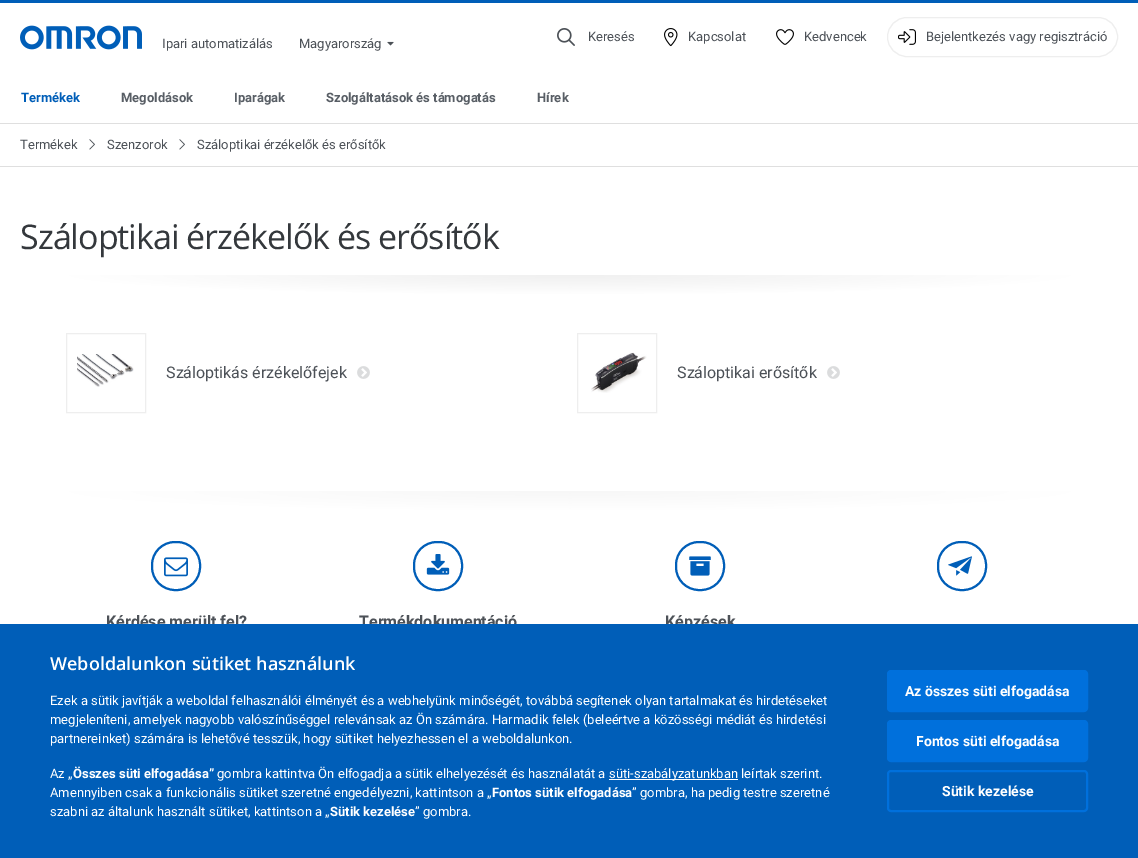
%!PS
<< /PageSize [1138 858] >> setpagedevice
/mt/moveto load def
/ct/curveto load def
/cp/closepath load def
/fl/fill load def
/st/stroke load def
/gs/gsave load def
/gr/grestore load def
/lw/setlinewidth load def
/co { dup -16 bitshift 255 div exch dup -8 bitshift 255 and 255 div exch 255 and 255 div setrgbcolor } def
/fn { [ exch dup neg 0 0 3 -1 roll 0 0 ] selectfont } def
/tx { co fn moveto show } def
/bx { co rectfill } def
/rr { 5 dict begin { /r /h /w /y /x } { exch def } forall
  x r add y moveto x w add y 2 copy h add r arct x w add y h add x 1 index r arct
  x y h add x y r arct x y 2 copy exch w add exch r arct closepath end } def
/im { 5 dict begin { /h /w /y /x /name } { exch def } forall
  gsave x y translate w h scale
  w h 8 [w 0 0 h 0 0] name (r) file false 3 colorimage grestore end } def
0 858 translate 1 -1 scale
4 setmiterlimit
0 0 1138 858 16#FFFFFF bx
0 0 1138 3 16#005EB8 bx
(media/1.raw) 20 25 122 25 im
(media/2.raw) 387 41 7 5 im
(media/3.raw) 557 28 18 18 im
(media/4.raw) 664 28 14 19 im
(media/5.raw) 776 29 18 16 im
16#EEEEEE co
887.5 17.5 230 39 19.5 rr st
(media/6.raw) 898 29 18 16 im
0 123 1138 1 16#DFDFDF bx
0 166 1138 1 16#DFDFDF bx
(media/7.raw) 89 139 6 11 im
(media/7.raw) 179 139 6 11 im
gs
68 275 1003 20 rectclip
gs 569.5 255 mt 846.5 255 1071 264 1071 275 ct 1071 286 846.5 295 569.5 295 ct 292.5 295 68 286 68 275 ct 68 264 292.5 255 569.5 255 ct cp clip newpath 570 275 translate 502 20 scale
<< /ShadingType 3 /ColorSpace /DeviceRGB /Coords [0 0 0 0 0 1] /Extend [true true] /Function << /FunctionType 2 /Domain [0 1] /C0 [.941 .941 .941] /C1 [1 1 1] /N 1 >> >> shfill gr
gr
16#EEEEEE co
66.5 333.5 79 79 rectstroke
(media/8.raw) 77 354 57 33 im
(media/9.raw) 357 366 13 13 im
577.5 333.5 79 79 rectstroke
(media/10.raw) 591 352 56 41 im
(media/9.raw) 827 366 13 13 im
gs
68 491 1003 20 rectclip
gs 569.5 471 mt 846.5 471 1071 480 1071 491 ct 1071 502 846.5 511 569.5 511 ct 292.5 511 68 502 68 491 ct 68 480 292.5 471 569.5 471 ct cp clip newpath 570 491 translate 502 20 scale
<< /ShadingType 3 /ColorSpace /DeviceRGB /Coords [0 0 0 0 0 1] /Extend [true true] /Function << /FunctionType 2 /Domain [0 1] /C0 [.969 .969 .969] /C1 [1 1 1] /N 1 >> >> shfill gr
gr
16#005EB8 co
2 lw
938 542 48 48 23 rr st
(media/11.raw) 948 556 24 20 im
152 542 48 48 23 rr st
(media/12.raw) 164 557 24 20 im
414 542 48 48 23 rr st
(media/13.raw) 426 554 24 21 im
676 542 48 48 23 rr st
(media/14.raw) 689 556 22 20 im
(Ipari automatizálás) 162 48 /Roboto-Regular 13 16#4C5157 tx
(Magyarország) 299 48 /Roboto-Regular 13 16#4C5157 tx
(Keresés) 588 41 /Roboto-Regular 13 16#4C5157 tx
(Kapcsolat) 688 41 /Roboto-Regular 13 16#4C5157 tx
(Kedvencek) 804 41 /Roboto-Regular 13 16#4C5157 tx
(Bejelentkezés vagy regisztráció) 926 41 /Roboto-Regular 13 16#4C5157 tx
(Termékek) 21 102 /Roboto-Bold 13 16#005EB8 tx
(Megoldások) 121 102 /Roboto-Bold 13 16#585E65 tx
(Iparágak) 234 102 /Roboto-Bold 13 16#585E65 tx
(Szolgáltatások és támogatás) 326 102 /Roboto-Bold 13 16#585E65 tx
(Hírek) 537 102 /Roboto-Bold 13 16#585E65 tx
(Termékek) 20 149 /Roboto-Regular 13 16#4C5157 tx
(Szenzorok) 107 149 /Roboto-Regular 13 16#4C5157 tx
(Száloptikai érzékelők és erősítők) 197 149 /Roboto-Regular 13 16#4C5157 tx
/OpenSans-Regular 34 fn
16#34383C co
20 249 mt -1 0 (Száloptikai érzékelők és erősítők) ashow
(Száloptikás érzékelőfejek) 166 378 /Roboto-Regular 16 16#4C5157 tx
(Száloptikai erősítők) 677 378 /Roboto-Regular 16 16#4C5157 tx
(Kérdése merült fel?) 106 627 /Roboto-Bold 16 16#4C5157 tx
(Termékdokumentáció) 359 627 /Roboto-Bold 16 16#4C5157 tx
(Képzések) 665 627 /Roboto-Bold 16 16#4C5157 tx
0 624 1138 234 16#005EB8 bx
(Weboldalunkon sütiket használunk) 50 670 /OpenSans-SemiBold 18 16#FFFFFF tx
(Ezek a sütik javítják a weboldal felhasználói élményét és a webhelyünk minőségét, továbbá segítenek olyan tartalmakat és hirdetéseket) 50 705 /Roboto-Regular 13 16#FFFFFF tx
(megjeleníteni, amelyek nagyobb valószínűséggel relevánsak az Ön számára. Harmadik felek \(beleértve a közösségi médiát és hirdetési) 50 724 /Roboto-Regular 13 16#FFFFFF tx
(partnereinket\) számára is lehetővé tesszük, hogy sütiket helyezhessen el a weboldalunkon.) 50 743 /Roboto-Regular 13 16#FFFFFF tx
(Az „) 50 778 /Roboto-Regular 13 16#FFFFFF tx
(Összes süti elfogadása”) 73 778 /Roboto-Bold 13 16#FFFFFF tx
(gombra kattintva Ön elfogadja a sütik elhelyezését és használatát a) 217 778 /Roboto-Regular 13 16#FFFFFF tx
609 779 129 1 16#FFFFFF bx
(süti-szabályzatunkban leírtak szerint.) 609 778 /Roboto-Regular 13 16#FFFFFF tx
(Amennyiben csak a funkcionális sütiket szeretné engedélyezni, kattintson a „) 50 797 /Roboto-Regular 13 16#FFFFFF tx
(Fontos sütik elfogadása) 492 797 /Roboto-Bold 13 16#FFFFFF tx
(” gombra, ha pedig testre szeretné) 632 797 /Roboto-Regular 13 16#FFFFFF tx
(szabni az általunk használt sütiket, kattintson a „) 50 816 /Roboto-Regular 13 16#FFFFFF tx
(Sütik kezelése) 330 816 /Roboto-Bold 13 16#FFFFFF tx
(” gombra.) 415 816 /Roboto-Regular 13 16#FFFFFF tx
16#0070DC co
888 671 199 40 3 rr gs fl gr
st
(Az összes süti elfogadása) 905 696 /Roboto-Bold 14 16#FFFFFF tx
16#0070DC co
888 721 199 40 3 rr gs fl gr
st
(Fontos süti elfogadása) 916 746 /Roboto-Bold 14 16#FFFFFF tx
16#0070DC co
888 771 199 40 3 rr st
(Sütik kezelése) 942 796 /Roboto-Bold 14 16#FFFFFF tx
showpage
